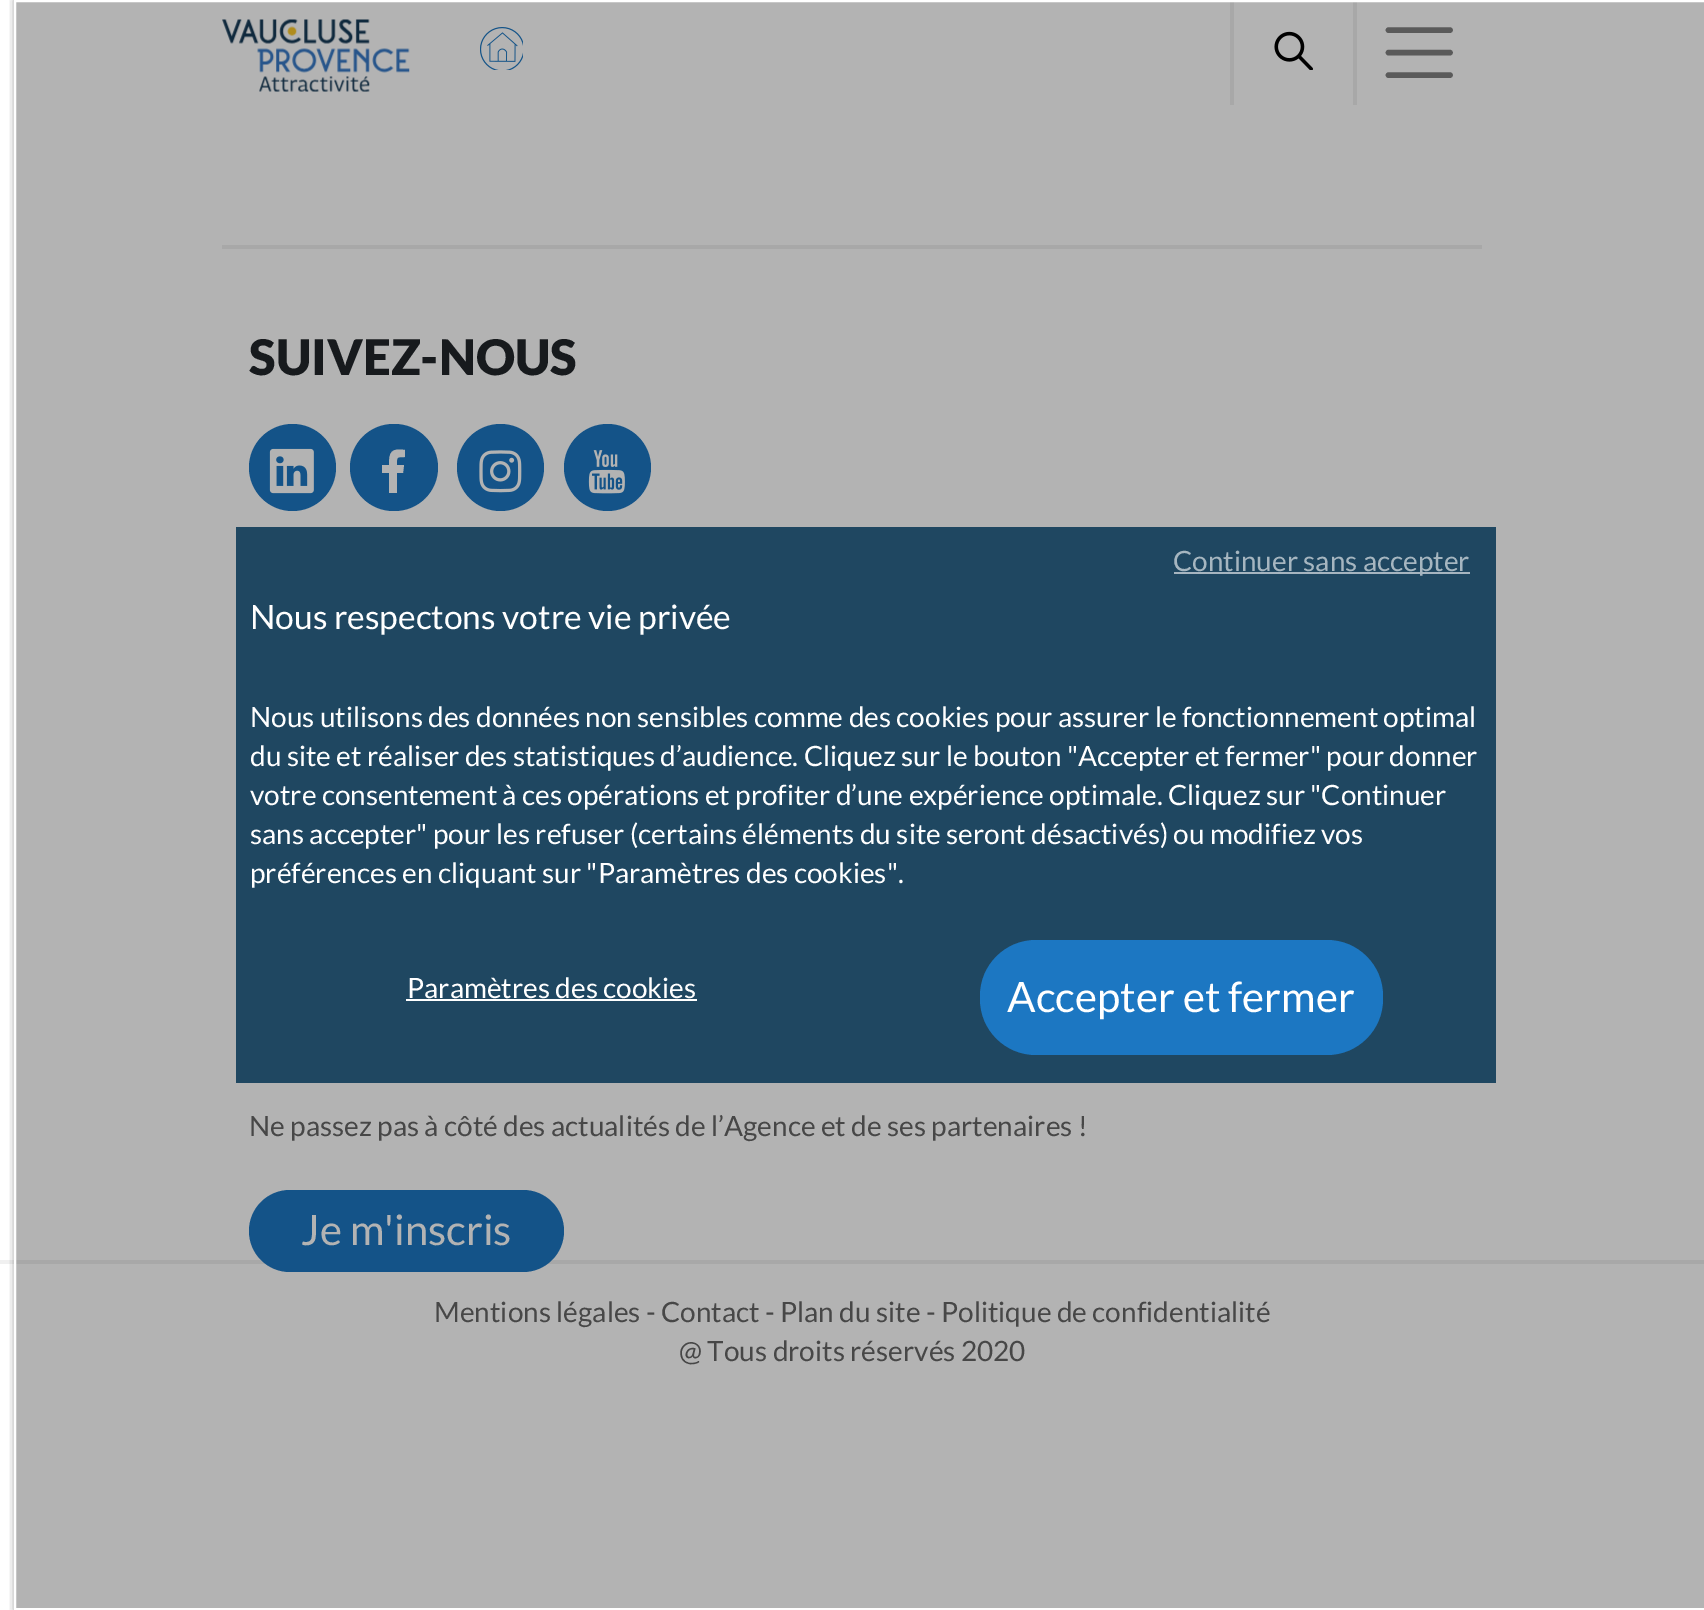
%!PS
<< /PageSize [1704 1610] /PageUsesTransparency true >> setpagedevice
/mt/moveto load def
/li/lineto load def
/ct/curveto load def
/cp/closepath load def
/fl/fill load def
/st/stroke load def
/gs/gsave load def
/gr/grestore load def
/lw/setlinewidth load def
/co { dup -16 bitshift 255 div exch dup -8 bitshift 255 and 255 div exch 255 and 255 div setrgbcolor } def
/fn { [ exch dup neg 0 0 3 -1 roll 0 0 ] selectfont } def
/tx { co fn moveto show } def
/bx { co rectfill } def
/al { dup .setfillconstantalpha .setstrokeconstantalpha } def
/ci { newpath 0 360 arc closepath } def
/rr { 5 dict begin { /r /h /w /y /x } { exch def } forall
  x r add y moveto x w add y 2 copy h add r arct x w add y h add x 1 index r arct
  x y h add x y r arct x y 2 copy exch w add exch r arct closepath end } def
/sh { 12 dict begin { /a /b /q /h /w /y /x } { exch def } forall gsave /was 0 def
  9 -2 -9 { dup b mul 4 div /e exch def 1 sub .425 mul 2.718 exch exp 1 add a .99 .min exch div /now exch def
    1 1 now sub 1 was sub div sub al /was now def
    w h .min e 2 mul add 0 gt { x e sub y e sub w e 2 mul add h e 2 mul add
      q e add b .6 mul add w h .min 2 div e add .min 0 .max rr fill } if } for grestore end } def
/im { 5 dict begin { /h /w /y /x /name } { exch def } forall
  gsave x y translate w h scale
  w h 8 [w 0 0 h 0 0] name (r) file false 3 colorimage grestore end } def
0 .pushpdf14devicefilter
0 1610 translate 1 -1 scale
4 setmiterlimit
0 0 1704 1610 16#FFFFFF bx
16 2 1688 1606 16#B3B3B3 bx
236 527 1260 556 16#1F4761 bx
(media/1.raw) 222 19 188 73 im
(media/2.raw) 480 27 43 43 im
1353 0 4 105 16#A8A8A8 bx
1230 0 4 105 16#A8A8A8 bx
(media/3.raw) 1274 31 39 39 im
16#5A5A5A co
5.6 lw
1 setlinecap
1388.5 30 mt 1450 30 li 1388.5 52.5 mt 1450 52.5 li 1388.5 75 mt 1450 75 li st
16#145388 co
292.5 467.5 43.5 ci fl
(media/4.raw) 269 448 45 46 im
350 424 88 87 43.5 rr fl
16#B3B3B3 co
389 493 mt 389 473 li 382 473 li 382 465 li 389 465 li 389 452 391 448 405 450 ct 405 457 li 396 457 397 457 397 465 ct 404 465 li 403 473 li 397 473 li 397 493 li cp fl
16#145388 co
500.5 467.5 43.5 ci fl
(media/5.raw) 479 450 43 43 im
607.5 467.5 43.5 ci fl
(media/6.raw) 588 450 37 44 im
14 1260 1690 4 16#A8A8A8 bx
16#145388 co
249 1190 315 82 41 rr fl
222 245 1260 4 16#A8A8A8 bx
0 1260 14 4 16#F0F0F0 bx
gs
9 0 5 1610 rectclip
16#000000 co
18 0 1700 1610 0 4.5 1 sh
gr
16#FFFFFF co
2 lw
0 setlinecap
15 1 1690 1608 rectstroke
1174 572 296 2 16#A6B5C0 bx
406 999 291 2 16#FFFFFF bx
16#1C77C2 co
980 940 403 115 56 rr fl
(SUIVEZ-NOUS) 249 375 /Lato-Black 49 16#171A1D tx
(Ne passez pas à côté des actualités de l’Agence et de ses partenaires !) 249 1136 /Lato-Regular 28 16#474747 tx
(Je m'inscris) 301 1245 /Lato-Regular 42 16#B3B3B3 tx
(Continuer sans accepter) 1173 571 /Lato-Regular 28 16#A6B6C0 tx
(Nous respectons votre vie privée) 250 629 /Lato-Regular 33.6 16#FFFFFF tx
(Nous utilisons des données non sensibles comme des cookies pour assurer le fonctionnement optimal) 250 727 /Lato-Regular 28 16#FFFFFF tx
(du site et réaliser des statistiques d’audience. Cliquez sur le bouton "Accepter et fermer" pour donner) 250 766 /Lato-Regular 28 16#FFFFFF tx
(votre consentement à ces opérations et profiter d’une expérience optimale. Cliquez sur "Continuer) 250 805 /Lato-Regular 28 16#FFFFFF tx
(sans accepter" pour les refuser \(certains éléments du site seront désactivés\) ou modifiez vos) 250 844 /Lato-Regular 28 16#FFFFFF tx
(préférences en cliquant sur "Paramètres des cookies".) 250 883 /Lato-Regular 28 16#FFFFFF tx
(Paramètres des cookies) 407 998 /Lato-Regular 28 16#FFFFFF tx
(Accepter et fermer) 1007 1012 /Lato-Regular 42 16#FFFFFF tx
(Mentions légales - Contact - Plan du site - Politique de confidentialité) 434 1322 /Lato-Regular 28 16#474747 tx
(@ Tous droits réservés 2020) 679 1361 /Lato-Regular 28 16#474747 tx
.poppdf14devicefilter showpage
